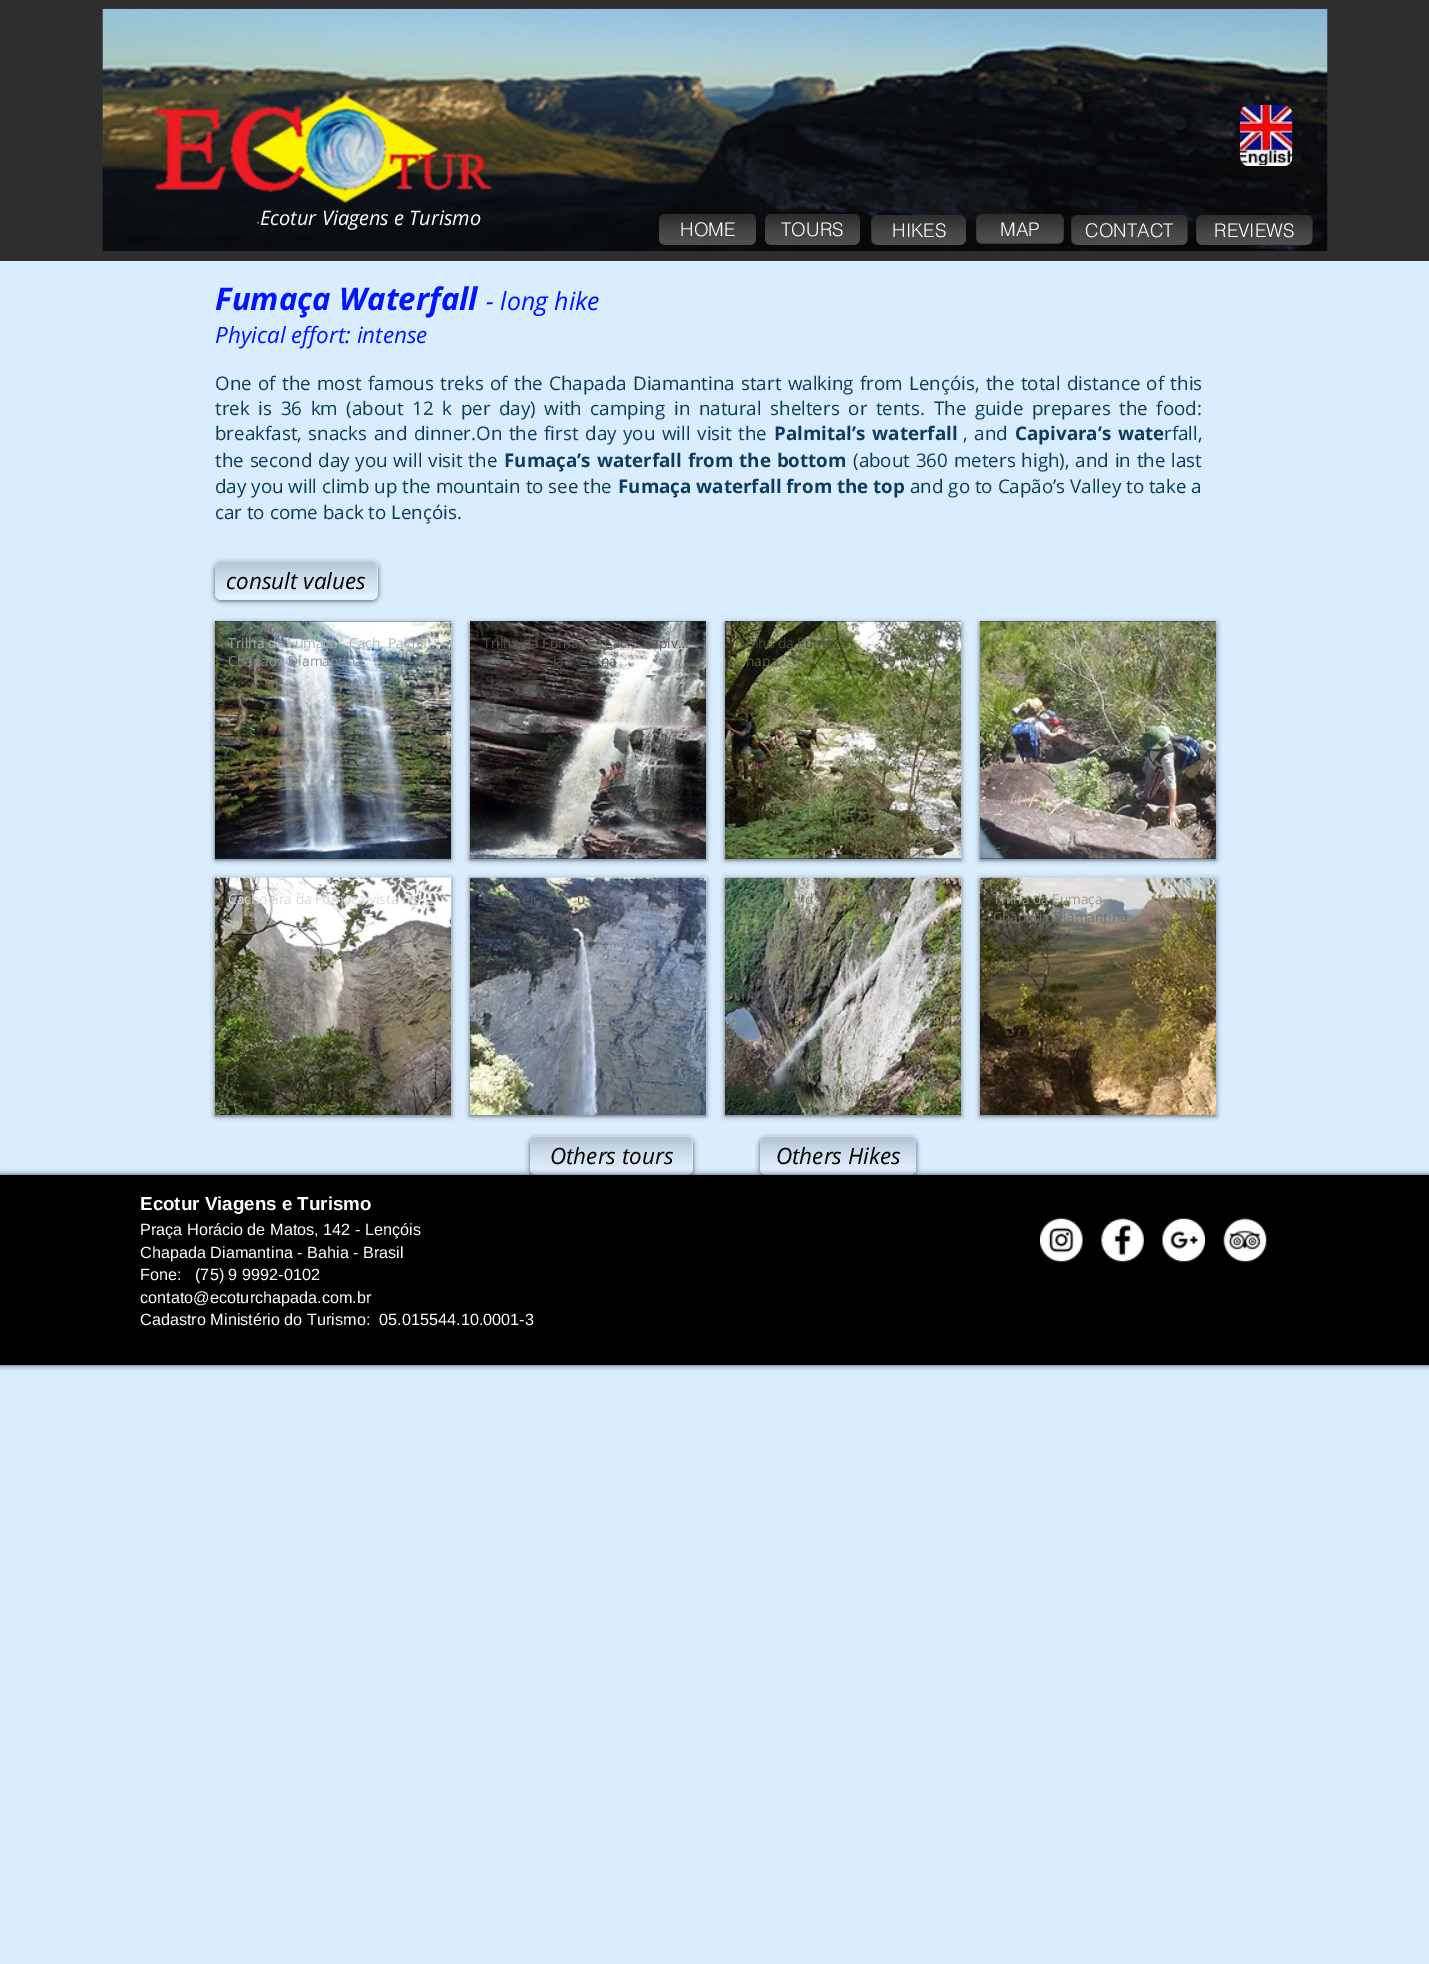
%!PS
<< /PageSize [1429 1964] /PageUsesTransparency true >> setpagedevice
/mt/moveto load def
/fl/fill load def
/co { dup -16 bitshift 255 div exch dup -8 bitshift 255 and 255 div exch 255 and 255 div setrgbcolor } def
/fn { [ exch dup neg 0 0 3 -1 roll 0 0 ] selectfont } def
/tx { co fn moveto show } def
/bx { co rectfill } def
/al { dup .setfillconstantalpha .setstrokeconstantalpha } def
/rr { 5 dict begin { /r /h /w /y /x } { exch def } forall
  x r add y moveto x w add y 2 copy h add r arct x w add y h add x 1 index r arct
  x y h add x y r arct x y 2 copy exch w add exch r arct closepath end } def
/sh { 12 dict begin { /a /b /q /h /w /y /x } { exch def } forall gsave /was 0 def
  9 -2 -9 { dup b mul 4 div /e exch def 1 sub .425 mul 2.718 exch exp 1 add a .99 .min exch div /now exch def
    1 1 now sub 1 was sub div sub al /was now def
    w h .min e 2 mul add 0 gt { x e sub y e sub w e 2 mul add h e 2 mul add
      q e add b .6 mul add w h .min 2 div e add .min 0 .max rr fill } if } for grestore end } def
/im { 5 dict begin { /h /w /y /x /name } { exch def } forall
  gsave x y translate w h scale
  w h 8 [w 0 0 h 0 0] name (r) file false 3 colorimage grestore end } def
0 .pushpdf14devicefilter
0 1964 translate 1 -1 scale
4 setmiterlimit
0 0 1429 1964 16#DAEDFF bx
0 0 1429 261 16#2F2E2E bx
(media/1.raw) 102 8 1226 243 im
(media/2.raw) 1240 105 53 61 im
16#232323 co
659 214 97 31 6 rr fl
(media/3.raw) 659 214 97 12 im
(media/4.raw) 659 214 97 31 im
765 214 95 31 6 rr fl
(media/5.raw) 765 214 95 12 im
(media/6.raw) 765 214 95 31 im
871 215 95 30 6 rr fl
(media/7.raw) 872 215 94 12 im
(media/8.raw) 871 215 95 30 im
976 214 88 30 6 rr fl
(media/9.raw) 977 214 86 12 im
(media/10.raw) 976 214 88 30 im
1071 215 117 30 6 rr fl
(media/11.raw) 1072 215 115 12 im
(media/12.raw) 1071 215 117 30 im
1196 215 117 30 6 rr fl
(media/13.raw) 1197 215 115 12 im
(media/14.raw) 1196 215 117 30 im
16#000000 co
215 563 163 38 6 2.5 .6 sh
16#DAEDFF co
215 561 163 39 6 rr fl
(media/15.raw) 215 561 163 32 im
(media/16.raw) 215 569 162 31 im
16#000000 co
215 623 236 237 0 2.5 .6 sh
215 621 236 238 16#0C3C60 bx
(media/17.raw) 215 621 237 238 im
16#000000 co
470 623 236 237 0 2.5 .6 sh
470 621 236 238 16#0C3C60 bx
(media/18.raw) 470 621 237 238 im
16#000000 co
725 623 236 237 0 2.5 .6 sh
725 621 236 238 16#0C3C60 bx
(media/19.raw) 725 621 237 238 im
16#000000 co
980 623 236 237 0 2.5 .6 sh
980 621 236 238 16#0C3C60 bx
(media/20.raw) 980 621 237 238 im
16#000000 co
215 879 236 237 0 2.5 .6 sh
(media/21.raw) 215 877 237 238 im
470 879 236 237 0 2.5 .6 sh
(media/22.raw) 470 877 237 238 im
725 879 236 237 0 2.5 .6 sh
(media/23.raw) 725 877 237 238 im
980 879 236 237 0 2.5 .6 sh
(media/24.raw) 980 877 237 238 im
530 1138 163 38 6 2.5 .6 sh
16#DAEDFF co
530 1136 163 39 6 rr fl
(media/15.raw) 530 1136 163 32 im
(media/16.raw) 530 1144 162 31 im
16#000000 co
760 1138 156 38 6 2.5 .6 sh
16#DAEDFF co
760 1136 156 39 6 rr fl
(media/25.raw) 760 1136 156 32 im
(media/26.raw) 760 1144 156 31 im
16#000000 co
0 1175 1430 190 0 3 .7 sh
0 1175 1429 190 16#000000 bx
(media/27.raw) 1040 1218 43 44 im
(media/28.raw) 1101 1218 43 44 im
(media/29.raw) 1162 1218 43 44 im
(media/30.raw) 1223 1218 44 44 im
(-) 257 225 /OpenSans-Italic 8 16#FFFFFF tx
(Ecotur Viagens e Turismo) 260 225 /OpenSans-Italic 20 16#FFFFFF tx
(HOME) 680 236 /helvetica-Light 18.75 16#FFFFFF tx
(TOURS) 781 236 /helvetica-Light 18.75 16#FFFFFF tx
(HIKES) 892 237 /helvetica-Light 18.75 16#FFFFFF tx
(MAP) 1000 236 /helvetica-Light 18.75 16#FFFFFF tx
(CONTACT) 1085 237 /helvetica-Light 18.75 16#FFFFFF tx
(REVIEWS) 1214 237 /helvetica-Light 18.75 16#FFFFFF tx
(Fumaça Waterfall) 215 310 /OpenSans-BoldItalic 31.25 16#0016FF tx
(- long hike) 486 310 /OpenSans-Italic 25 16#0016FF tx
(Phyical effort: intense) 215 343 /OpenSans-Italic 22.5 16#0016FF tx
/OpenSans-Regular 18.75 fn
16#0C3C60 co
215 390 mt 1.5 0 32 (One of the most famous treks of the Chapada Diamantina start walking from Lençóis, the total distance of this) widthshow
215 415 mt 3.75 0 32 (trek is 36 km \(about 12 k per day\) with camping in natural shelters or tents. The guide prepares the food:) widthshow
215 440 mt 1.75 0 32 (breakfast, snacks and dinner.On the first day you will visit the) widthshow
/OpenSans-Bold 18.75 fn
774 440 mt 2 0 32 (Palmital’s waterfall) widthshow
/OpenSans-Regular 18.75 fn
963 440 mt 1.75 0 32 (, and) widthshow
/OpenSans-Bold 18.75 fn
1015 440 mt 2 0 32 (Capivara’s wate) widthshow
(rfall,) 1164 440 /OpenSans-Regular 18.75 16#0C3C60 tx
215 467 mt 1 0 32 (the second day you will visit the) widthshow
/OpenSans-Bold 18.75 fn
504 467 mt 1 0 32 (Fumaça’s waterfall from the bottom) widthshow
/OpenSans-Regular 18.75 fn
853 467 mt 1 0 32 (\(about 360 meters high\), and in the last) widthshow
(day you will climb up the mountain to see the) 215 493 /OpenSans-Regular 18.75 16#0C3C60 tx
(Fumaça waterfall from the top) 618 493 /OpenSans-Bold 18.75 16#0C3C60 tx
(and go to Capão’s Valley to take a) 910 493 /OpenSans-Regular 18.75 16#0C3C60 tx
(car to come back to Lençóis.) 215 519 /OpenSans-Regular 18.75 16#0C3C60 tx
(consult values) 226 589 /OpenSans-Italic 22.5 16#000000 tx
(Trilha da Fumaça - Cach. Palmit…) 228 648 /OpenSans-Regular 13.75 16#A9B5B5 tx
(Chapada Diamantina) 228 666 /OpenSans-Regular 13.75 16#859092 tx
(Trilha da Fumaça - Cach. Capiv…) 483 648 /OpenSans-Regular 13.75 16#5A5656 tx
(ia) 553 666 /OpenSans-Regular 13.75 16#5A5656 tx
(na) 601 666 /OpenSans-Regular 13.75 16#5A5656 tx
(Trilha da Fumaça) 738 648 /OpenSans-Regular 13.75 16#49502D tx
(hapa) 746 666 /OpenSans-Regular 13.75 16#5A6735 tx
(Cachoeira da Fumaça vista de …) 228 904 /OpenSans-Regular 13.75 16#D9D9D7 tx
(C) 483 904 /OpenSans-Regular 13.75 16#5B646B tx
(eir) 522 904 /OpenSans-Regular 13.75 16#5B646B tx
(u) 577 904 /OpenSans-Regular 13.75 16#5B646B tx
(d) 805 904 /OpenSans-Regular 13.75 16#778367 tx
(Trilha da Fumaça) 993 904 /OpenSans-Regular 13.75 16#9A9A8C tx
(Chapada Diamantina) 993 922 /OpenSans-Regular 13.75 16#717168 tx
(Others tours) 550 1164 /OpenSans-Italic 22.5 16#000000 tx
(Others Hikes) 776 1164 /OpenSans-Italic 22.5 16#000000 tx
(Ecotur Viagens e Turismo) 140 1210 /LiberationSans-Bold 18.75 16#FFFFFF tx
(Praça Horácio de Matos, 142 - Lençóis) 140 1235 /LiberationSans-Regular 16.25 16#FFFFFF tx
(Chapada Diamantina - Bahia - Brasil) 140 1258 /LiberationSans-Regular 16.25 16#FFFFFF tx
(Fone:   \(75\) 9 9992-0102) 140 1280 /LiberationSans-Regular 16.25 16#FFFFFF tx
(contato@ecoturchapada.com.br) 140 1303 /LiberationSans-Regular 16.25 16#FFFFFF tx
(Cadastro Ministério do Turismo:  05.015544.10.0001-3) 140 1325 /LiberationSans-Regular 16.25 16#FFFFFF tx
.poppdf14devicefilter showpage
